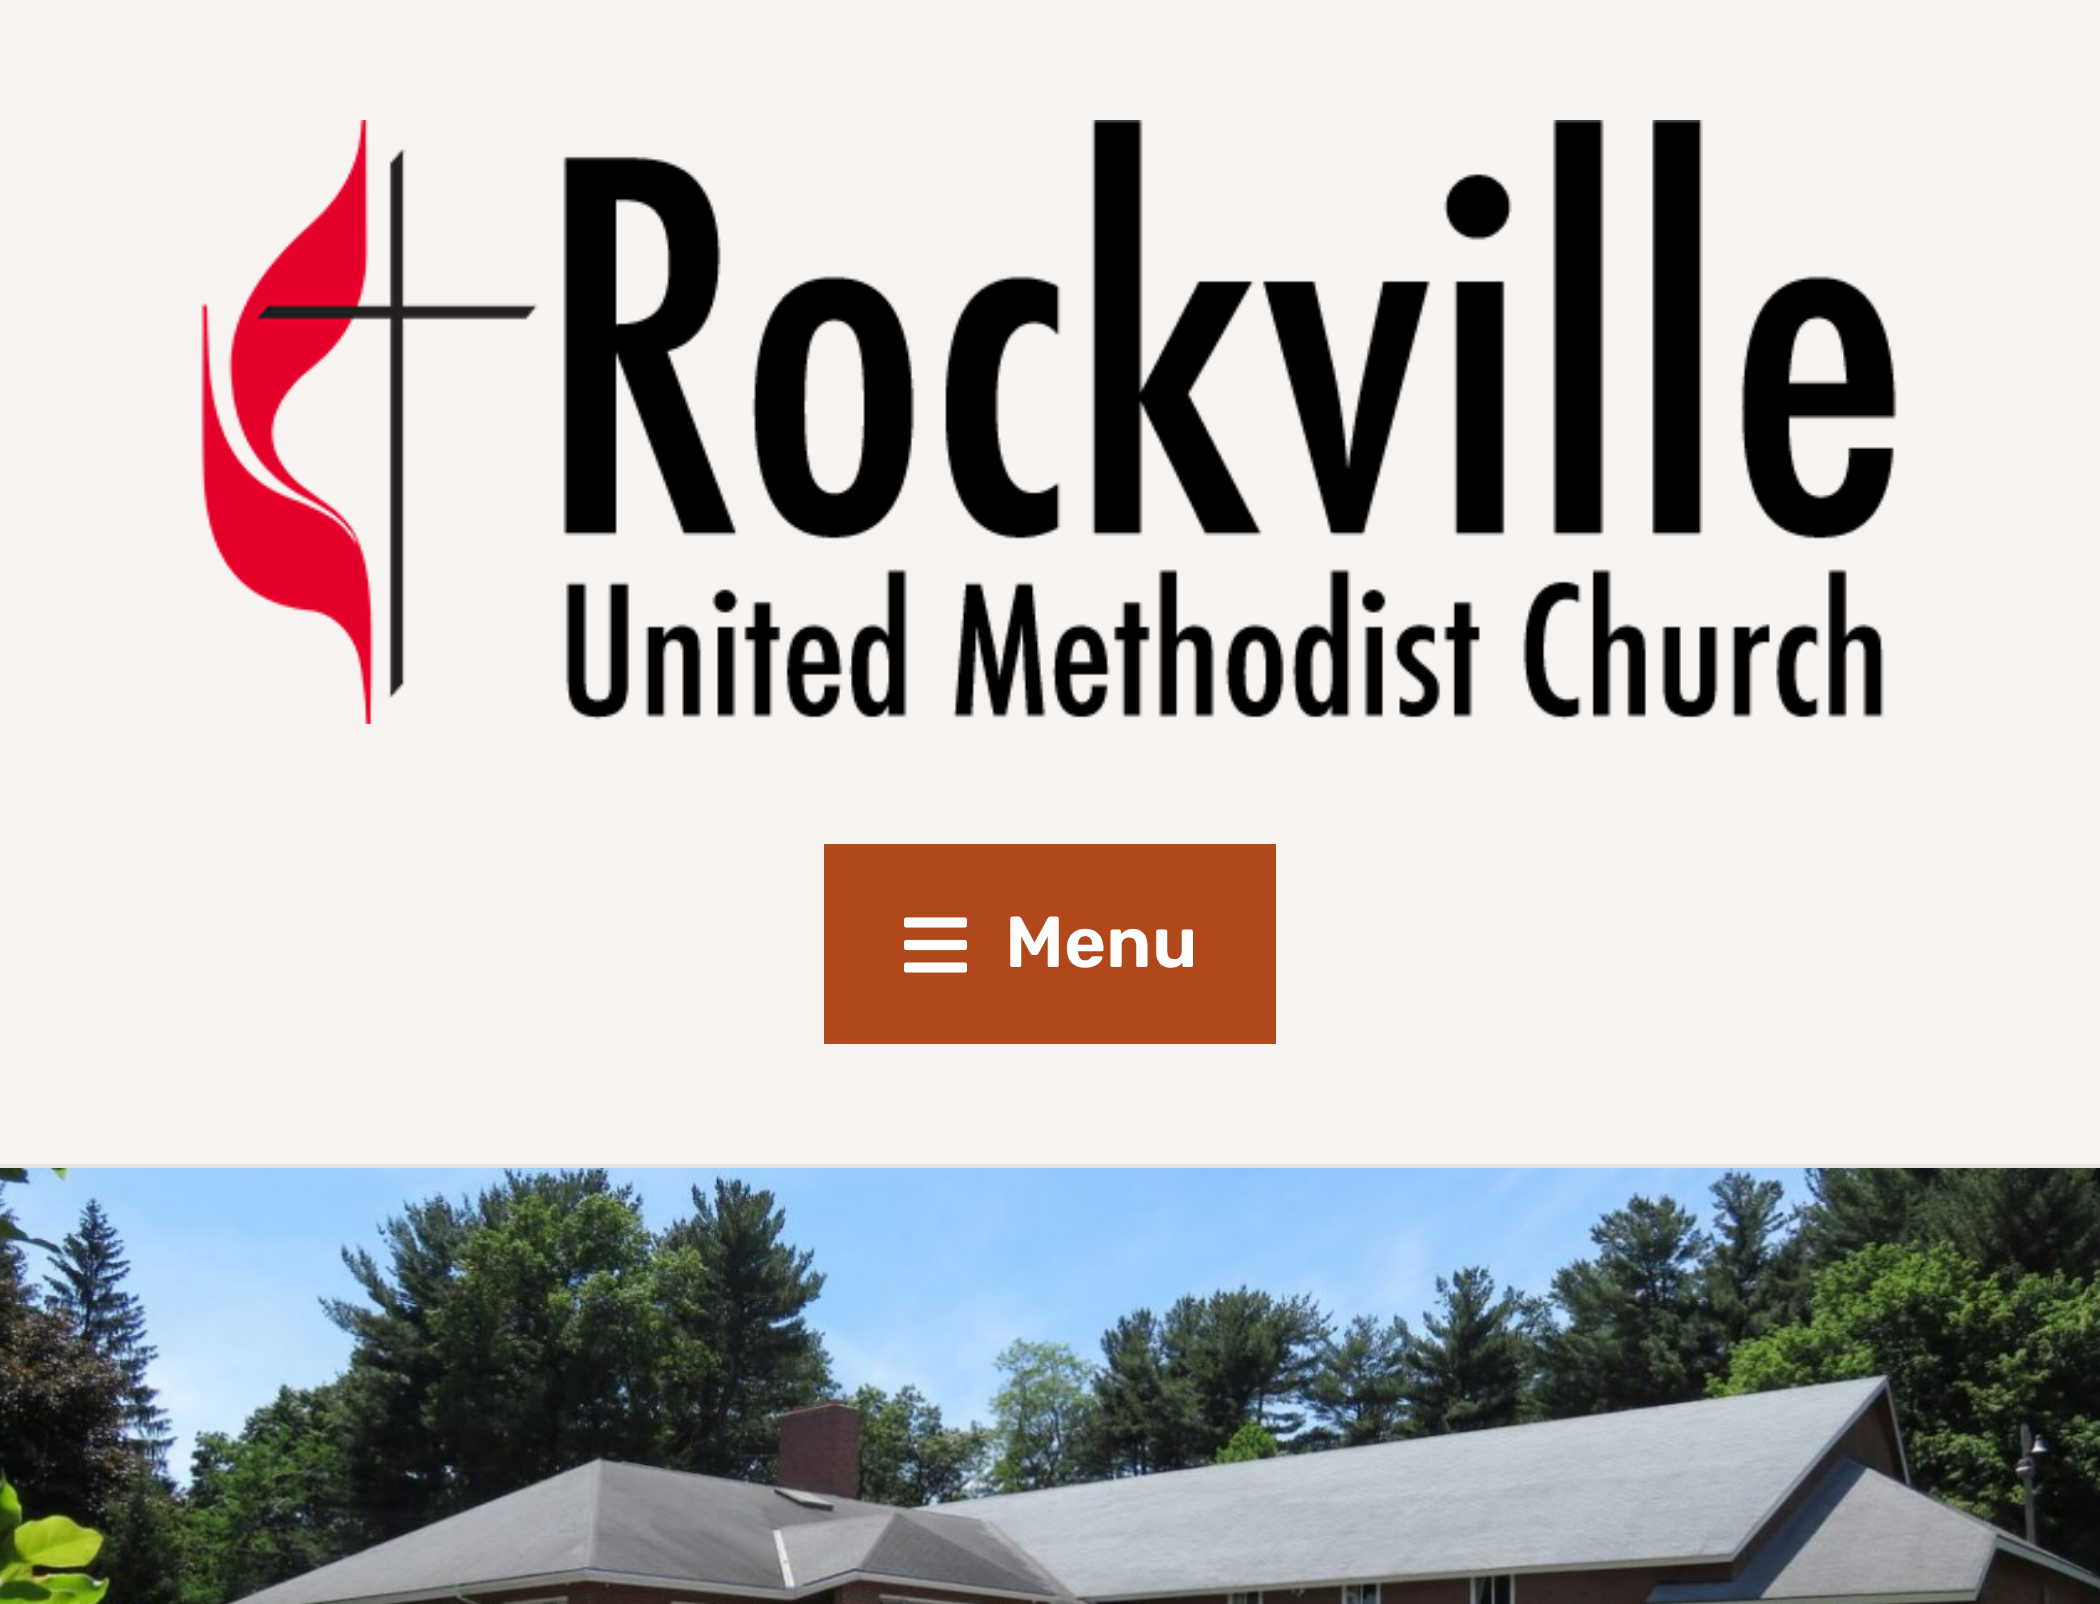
%!PS
<< /PageSize [2100 1604] >> setpagedevice
/co { dup -16 bitshift 255 div exch dup -8 bitshift 255 and 255 div exch 255 and 255 div setrgbcolor } def
/fn { [ exch dup neg 0 0 3 -1 roll 0 0 ] selectfont } def
/tx { co fn moveto show } def
/bx { co rectfill } def
/im { 5 dict begin { /h /w /y /x /name } { exch def } forall
  gsave x y translate w h scale
  w h 8 [w 0 0 h 0 0] name (r) file false 3 colorimage grestore end } def
0 1604 translate 1 -1 scale
4 setmiterlimit
0 0 2100 1604 16#F7F3F0 bx
0 1164 2100 4 16#E7E3E0 bx
(media/1.raw) 201 120 1696 604 im
824 844 452 200 16#B1481B bx
(media/2.raw) 904 917 63 56 im
(media/3.raw) 0 1168 2100 436 im
(Menu) 1005 967 /Rubik-SemiBold 72 16#FFFFFF tx
showpage
